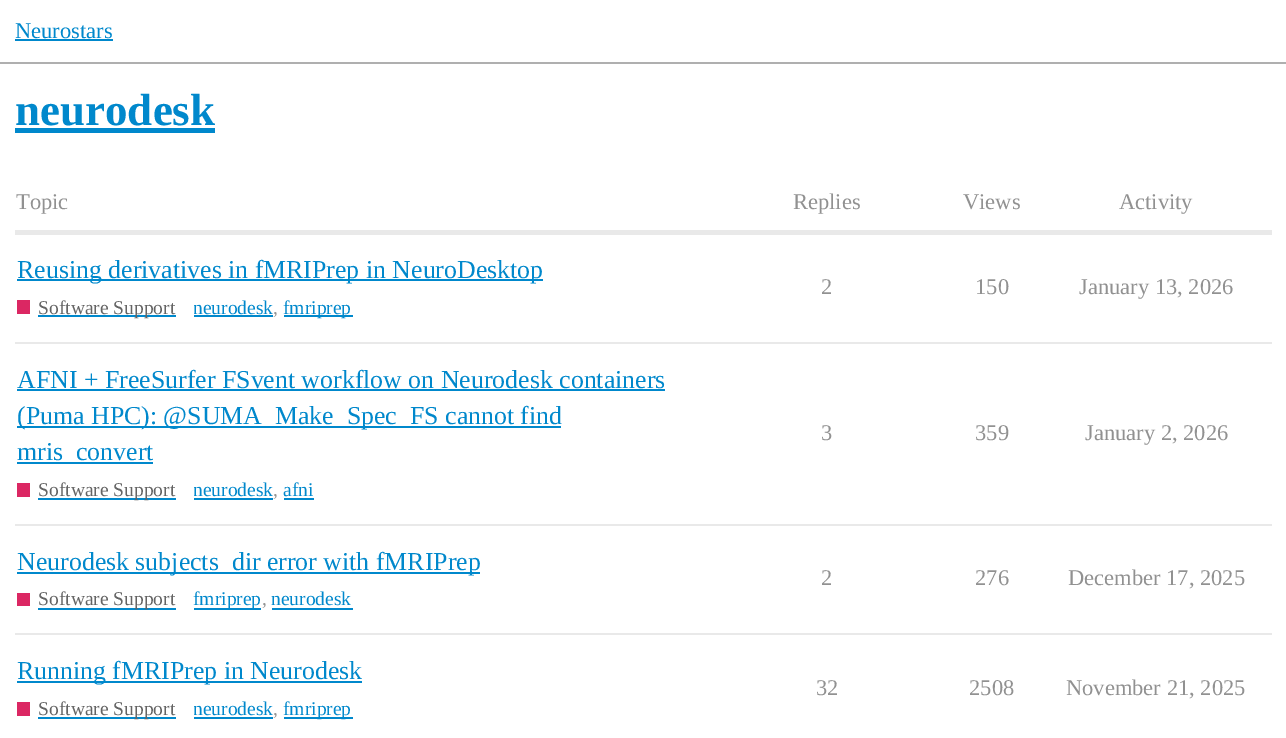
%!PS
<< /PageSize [1286 738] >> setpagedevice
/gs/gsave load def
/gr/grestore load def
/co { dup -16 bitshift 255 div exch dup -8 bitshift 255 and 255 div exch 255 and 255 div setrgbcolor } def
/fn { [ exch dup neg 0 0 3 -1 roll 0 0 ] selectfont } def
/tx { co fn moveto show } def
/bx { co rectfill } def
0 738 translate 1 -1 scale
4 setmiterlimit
0 0 1286 738 16#FFFFFF bx
0 62 1286 2 16#AFAFAF bx
15 39 98 2 16#0088CC bx
15 128 200 5 16#0088CC bx
15 230 1257 5 16#E9E9E9 bx
15 342 1257 2 16#E9E9E9 bx
17 279 526 2 16#0088CC bx
17 300 13 14 16#DB2763 bx
38 315 138 2 16#0088CC bx
194 315 79 2 16#0088CC bx
284 315 69 2 16#0088CC bx
15 524 1257 2 16#E9E9E9 bx
17 389 648 2 16#0088CC bx
17 426 544 2 16#0088CC bx
17 462 136 2 16#0088CC bx
17 483 13 14 16#DB2763 bx
38 498 138 2 16#0088CC bx
194 498 79 2 16#0088CC bx
284 498 30 2 16#0088CC bx
15 633 1257 2 16#E9E9E9 bx
17 572 463 2 16#0088CC bx
17 593 13 13 16#DB2763 bx
38 608 138 2 16#0088CC bx
194 608 67 2 16#0088CC bx
272 608 81 2 16#0088CC bx
17 681 345 2 16#0088CC bx
17 702 13 14 16#DB2763 bx
38 717 138 2 16#0088CC bx
194 717 79 2 16#0088CC bx
284 717 69 2 16#0088CC bx
(Neurostars) 15 38 /LiberationSerif-Regular 22.5 16#0088CC tx
(neurodesk) 15 125 /LiberationSerif-Bold 45 16#0088CC tx
(Topic) 16 209 /LiberationSerif-Regular 22.5 16#919191 tx
(Replies) 793 209 /LiberationSerif-Regular 22.5 16#919191 tx
(Views) 963 209 /LiberationSerif-Regular 22.5 16#919191 tx
(Activity) 1119 209 /LiberationSerif-Regular 22.5 16#919191 tx
(Reusing derivatives in fMRIPrep in NeuroDesktop) 17 278 /LiberationSerif-Regular 25.85 16#0088CC tx
(Software Support) 38 314 /LiberationSerif-Regular 19.5 16#646464 tx
gs
194 294 79 29 rectclip
(neurodesk) 193 314 /LiberationSerif-Regular 19.5 16#0088CC tx
gr
(,) 273 314 /LiberationSerif-Regular 19.5 16#919191 tx
(fmriprep) 283 314 /LiberationSerif-Regular 19.5 16#0088CC tx
(2) 821 294 /LiberationSerif-Regular 22.5 16#919191 tx
(150) 975 294 /LiberationSerif-Regular 22.5 16#919191 tx
(January 13, 2026) 1079 294 /LiberationSerif-Regular 22.5 16#919191 tx
(AFNI + FreeSurfer FSvent workflow on Neurodesk containers) 17 388 /LiberationSerif-Regular 25.85 16#0088CC tx
(\(Puma HPC\): @SUMA_Make_Spec_FS cannot find) 17 424 /LiberationSerif-Regular 25.85 16#0088CC tx
(mris_convert) 17 460 /LiberationSerif-Regular 25.85 16#0088CC tx
(Software Support) 38 496 /LiberationSerif-Regular 19.5 16#646464 tx
gs
194 477 79 27 rectclip
(neurodesk) 193 496 /LiberationSerif-Regular 19.5 16#0088CC tx
gr
(,) 273 496 /LiberationSerif-Regular 19.5 16#919191 tx
(afni) 283 496 /LiberationSerif-Regular 19.5 16#0088CC tx
(3) 821 440 /LiberationSerif-Regular 22.5 16#919191 tx
(359) 975 440 /LiberationSerif-Regular 22.5 16#919191 tx
(January 2, 2026) 1085 440 /LiberationSerif-Regular 22.5 16#919191 tx
(Neurodesk subjects_dir error with fMRIPrep) 17 570 /LiberationSerif-Regular 25.85 16#0088CC tx
(Software Support) 38 605 /LiberationSerif-Regular 19.5 16#646464 tx
(fmriprep) 193 605 /LiberationSerif-Regular 19.5 16#0088CC tx
(,) 262 605 /LiberationSerif-Regular 19.5 16#919191 tx
(neurodesk) 271 605 /LiberationSerif-Regular 19.5 16#0088CC tx
(2) 821 585 /LiberationSerif-Regular 22.5 16#919191 tx
(276) 975 585 /LiberationSerif-Regular 22.5 16#919191 tx
(December 17, 2025) 1068 585 /LiberationSerif-Regular 22.5 16#919191 tx
(Running fMRIPrep in Neurodesk) 17 679 /LiberationSerif-Regular 25.85 16#0088CC tx
(Software Support) 38 715 /LiberationSerif-Regular 19.5 16#646464 tx
gs
194 696 79 27 rectclip
(neurodesk) 193 715 /LiberationSerif-Regular 19.5 16#0088CC tx
gr
(,) 273 715 /LiberationSerif-Regular 19.5 16#919191 tx
(fmriprep) 283 715 /LiberationSerif-Regular 19.5 16#0088CC tx
(32) 816 695 /LiberationSerif-Regular 22.5 16#919191 tx
(2508) 969 695 /LiberationSerif-Regular 22.5 16#919191 tx
(November 21, 2025) 1066 695 /LiberationSerif-Regular 22.5 16#919191 tx
showpage
